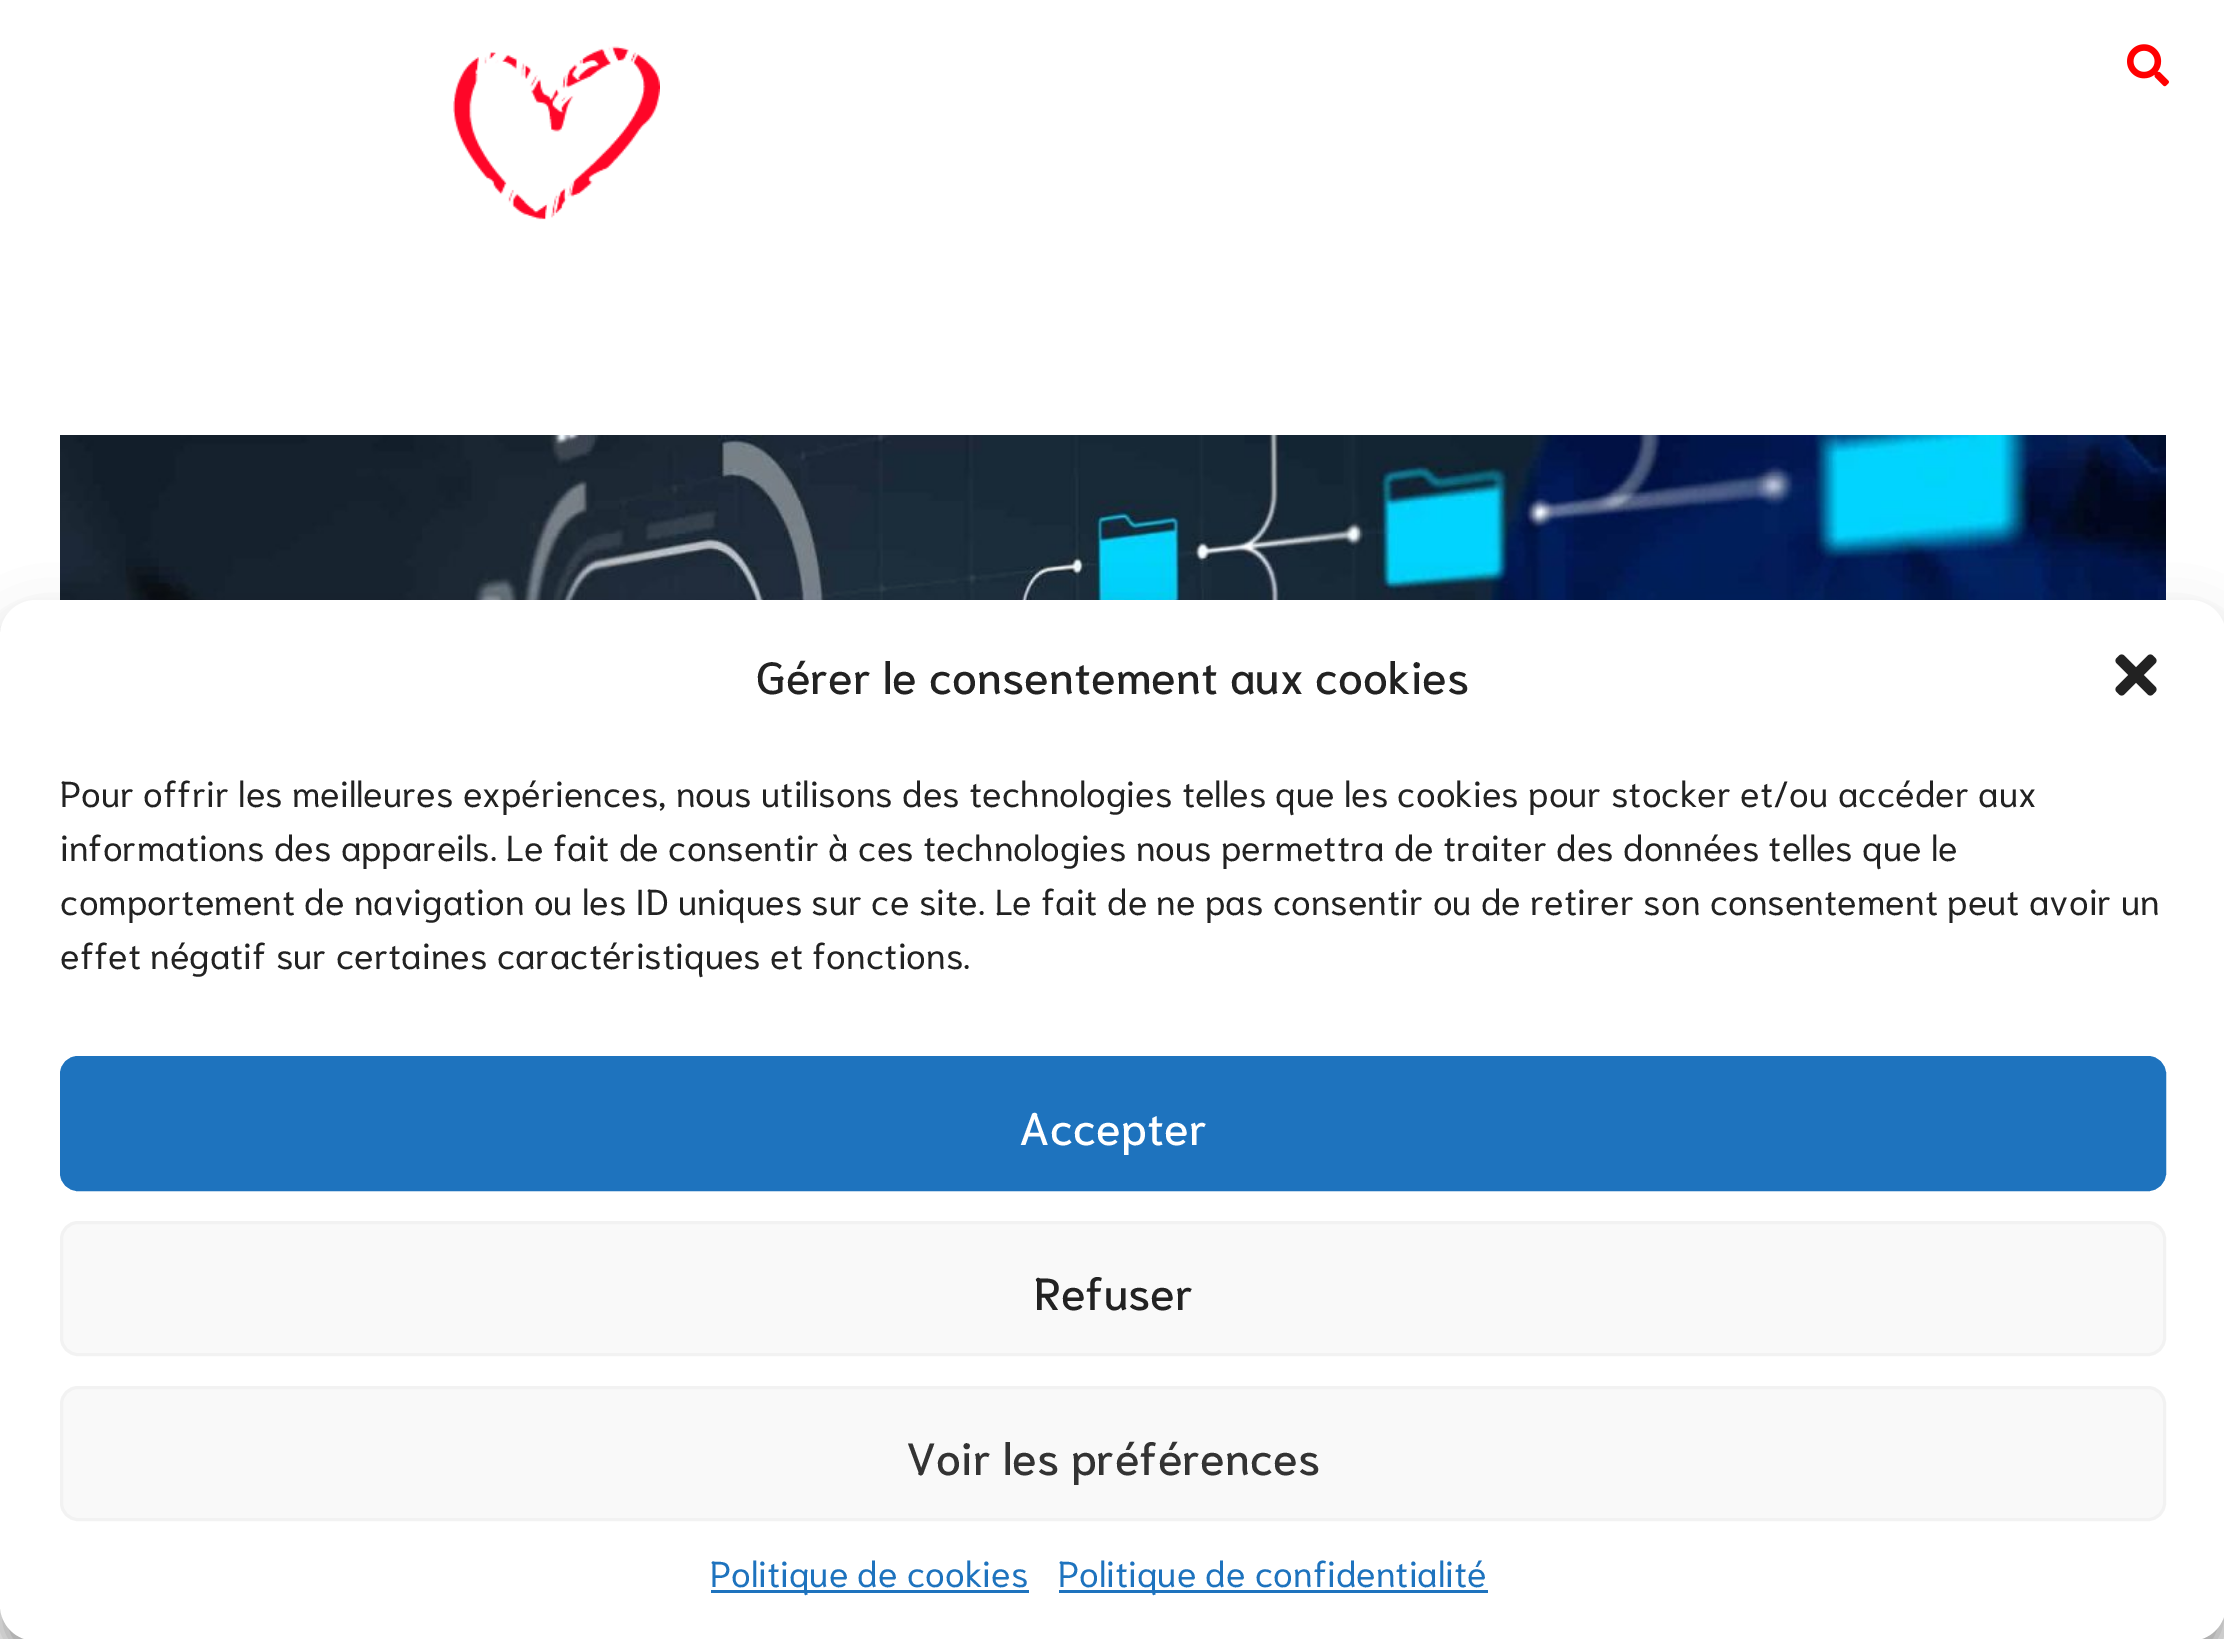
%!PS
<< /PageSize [2224 1639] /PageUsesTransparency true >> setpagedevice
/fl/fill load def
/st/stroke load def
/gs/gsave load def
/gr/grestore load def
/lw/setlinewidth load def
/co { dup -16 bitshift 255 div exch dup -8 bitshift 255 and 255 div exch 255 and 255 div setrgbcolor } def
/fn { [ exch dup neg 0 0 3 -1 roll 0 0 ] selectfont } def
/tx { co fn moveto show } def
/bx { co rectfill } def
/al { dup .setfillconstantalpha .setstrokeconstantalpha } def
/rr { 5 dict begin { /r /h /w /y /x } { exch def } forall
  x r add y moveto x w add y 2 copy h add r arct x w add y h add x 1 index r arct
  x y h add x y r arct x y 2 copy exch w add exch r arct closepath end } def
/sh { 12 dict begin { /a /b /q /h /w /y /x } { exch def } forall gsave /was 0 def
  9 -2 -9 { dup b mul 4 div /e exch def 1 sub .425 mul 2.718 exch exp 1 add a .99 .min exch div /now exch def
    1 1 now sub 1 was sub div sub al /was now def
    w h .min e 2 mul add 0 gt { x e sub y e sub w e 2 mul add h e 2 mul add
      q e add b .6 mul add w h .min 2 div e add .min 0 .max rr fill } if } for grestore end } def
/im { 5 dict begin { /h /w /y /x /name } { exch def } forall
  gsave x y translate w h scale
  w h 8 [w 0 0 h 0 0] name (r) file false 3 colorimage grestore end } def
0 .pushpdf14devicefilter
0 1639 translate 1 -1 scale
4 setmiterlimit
0 0 2224 1639 16#FFFFFF bx
(media/1.raw) 453 46 207 174 im
(media/2.raw) 2127 44 42 43 im
(media/3.raw) 60 435 2106 165 im
16#000000 co
0 618 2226 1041 36 9 .23 sh
0 630 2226 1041 36 30 .19 sh
16#FFFFFF co
0 600 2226 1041 36 rr fl
(media/4.raw) 2115 654 42 42 im
16#1E73BE co
61.5 1057.5 2103 132 16.5 rr gs fl gr
3 lw
st
16#F9F9F9 co
61.5 1222.5 2103 132 16.5 rr gs fl gr
16#F2F2F2 co
st
16#F9F9F9 co
61.5 1387.5 2103 132 16.5 rr gs fl gr
16#F2F2F2 co
st
711 1590 318 3 16#1E73BE bx
1059 1590 429 3 16#1E73BE bx
(Gérer le consentement aux cookies) 756 694 /Niramit-Medium 45 16#222222 tx
(Pour offrir les meilleures expériences, nous utilisons des technologies telles que les cookies pour stocker et/ou accéder aux) 60 807 /Niramit-Regular 36 16#222222 tx
(informations des appareils. Le fait de consentir à ces technologies nous permettra de traiter des données telles que le) 60 861 /Niramit-Regular 36 16#222222 tx
(comportement de navigation ou les ID uniques sur ce site. Le fait de ne pas consentir ou de retirer son consentement peut avoir un) 60 915 /Niramit-Regular 36 16#222222 tx
(effet négatif sur certaines caractéristiques et fonctions.) 60 969 /Niramit-Regular 36 16#222222 tx
(Accepter) 1019 1145 /Niramit-Medium 45 16#FFFFFF tx
(Refuser) 1034 1310 /Niramit-Medium 45 16#222222 tx
(Voir les préférences) 906 1475 /Niramit-Medium 45 16#333333 tx
(Politique de cookies) 710 1587 /Niramit-Regular 36 16#1E73BE tx
(Politique de confidentialité) 1058 1587 /Niramit-Regular 36 16#1E73BE tx
.poppdf14devicefilter showpage
